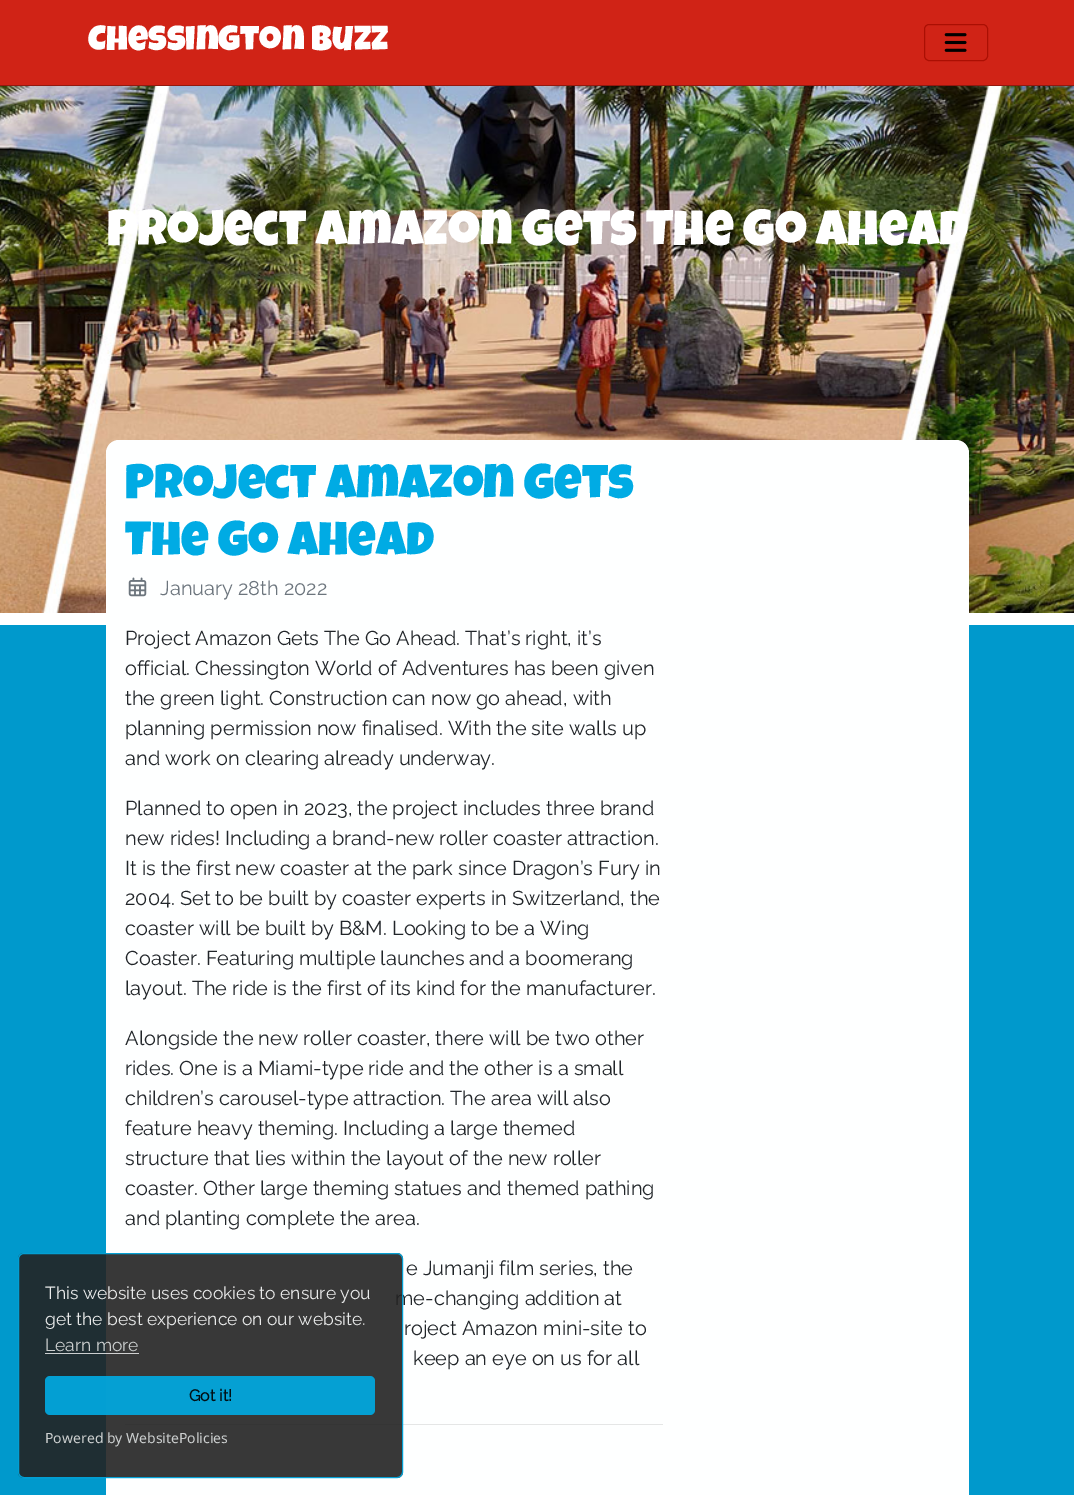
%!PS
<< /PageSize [1074 1495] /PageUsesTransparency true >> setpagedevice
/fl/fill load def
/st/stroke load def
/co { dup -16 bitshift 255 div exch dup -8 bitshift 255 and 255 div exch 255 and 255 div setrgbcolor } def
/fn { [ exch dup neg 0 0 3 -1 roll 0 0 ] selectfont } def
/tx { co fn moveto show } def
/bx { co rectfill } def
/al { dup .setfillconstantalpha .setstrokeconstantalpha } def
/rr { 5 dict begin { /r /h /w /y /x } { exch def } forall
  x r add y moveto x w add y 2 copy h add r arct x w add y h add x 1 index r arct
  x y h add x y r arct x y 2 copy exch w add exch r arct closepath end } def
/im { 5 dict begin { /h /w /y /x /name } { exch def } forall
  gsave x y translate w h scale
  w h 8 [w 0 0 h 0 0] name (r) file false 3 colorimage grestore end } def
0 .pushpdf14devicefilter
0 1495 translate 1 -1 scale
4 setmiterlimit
0 0 1074 1495 16#0099CC bx
0 0 1074 85 16#D02316 bx
0 85 1074 1 16#92190F bx
16#AB0F03 co
924.5 24.5 63 36 4.5 rr st
(media/1.raw) 944 33 23 19 im
(media/2.raw) 0 86 1074 527 im
0 613 1074 12 16#FFFFFF bx
16#FEFFFF co
106 440 863 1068 13 rr fl
(media/3.raw) 128 577 19 20 im
125 1424 538 1 16#E5E6E6 bx
(Chessington Buzz) 88 50 /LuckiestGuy-Regular 35 16#FFFFFF tx
(Project Amazon Gets The Go Ahead) 107 245 /LuckiestGuy-Regular 50 16#FFFFFF tx
(Project Amazon Gets) 125 498 /LuckiestGuy-Regular 48 16#00ABE4 tx
(The Go Ahead) 125 555 /LuckiestGuy-Regular 48 16#00ABE4 tx
(January 28th 2022) 160 595 /Raleway-Thin 20 16#6C757D tx
(Project Amazon Gets The Go Ahead. That’s right, it’s) 125 645 /Raleway-Thin 20 16#212529 tx
(official. Chessington World of Adventures has been given) 125 675 /Raleway-Thin 20 16#212529 tx
(the green light. Construction can now go ahead, with) 125 705 /Raleway-Thin 20 16#212529 tx
(planning permission now finalised. With the site walls up) 125 735 /Raleway-Thin 20 16#212529 tx
(and work on clearing already underway.) 125 765 /Raleway-Thin 20 16#212529 tx
(Planned to open in 2023, the project includes three brand) 125 815 /Raleway-Thin 20 16#212529 tx
(new rides! Including a brand-new roller coaster attraction.) 125 845 /Raleway-Thin 20 16#212529 tx
(It is the first new coaster at the park since Dragon’s Fury in) 125 875 /Raleway-Thin 20 16#212529 tx
(2004. Set to be built by coaster experts in Switzerland, the) 125 905 /Raleway-Thin 20 16#212529 tx
(coaster will be built by B&M. Looking to be a Wing) 125 935 /Raleway-Thin 20 16#212529 tx
(Coaster. Featuring multiple launches and a boomerang) 125 965 /Raleway-Thin 20 16#212529 tx
(layout. The ride is the first of its kind for the manufacturer.) 125 995 /Raleway-Thin 20 16#212529 tx
(Alongside the new roller coaster, there will be two other) 125 1045 /Raleway-Thin 20 16#212529 tx
(rides. One is a Miami-type ride and the other is a small) 125 1075 /Raleway-Thin 20 16#212529 tx
(children’s carousel-type attraction. The area will also) 125 1105 /Raleway-Thin 20 16#212529 tx
(feature heavy theming. Including a large themed) 125 1135 /Raleway-Thin 20 16#212529 tx
(structure that lies within the layout of the new roller) 125 1165 /Raleway-Thin 20 16#212529 tx
(coaster. Other large theming statues and themed pathing) 125 1195 /Raleway-Thin 20 16#212529 tx
(and planting complete the area.) 125 1225 /Raleway-Thin 20 16#212529 tx
(e Jumanji film series, the) 406 1275 /Raleway-Thin 20 16#212529 tx
(me-changing addition at) 395 1305 /Raleway-Thin 20 16#212529 tx
(roject Amazon mini-site to) 404 1335 /Raleway-Thin 20 16#212529 tx
(keep an eye on us for all) 413 1365 /Raleway-Thin 20 16#212529 tx
0.9 al
16#222222 co
18 1253 385 225 6 rr fl
16#00ABE4 co
18.5 1253.5 384 224 5.5 rr st
1 al
(This website uses cookies to ensure you) 45 1299 /Raleway-Thin 17.5 16#EAEBEB tx
(get the best experience on our website.) 45 1325 /Raleway-Thin 17.5 16#EAEBEB tx
(Learn more) 45 1351 /Raleway-Thin 17.5 16#CCCFCF tx
0.77 al
45 1353 94 1 16#FFFFFF bx
0.9 al
16#00ABE4 co
45 1376 330 39 5 rr fl
1 al
(Got it!) 189 1401 /Raleway-Bold 16 16#011015 tx
(Powered by WebsitePolicies) 45 1443 /NotoSans-Regular 14 16#CCCFCF tx
.poppdf14devicefilter showpage
